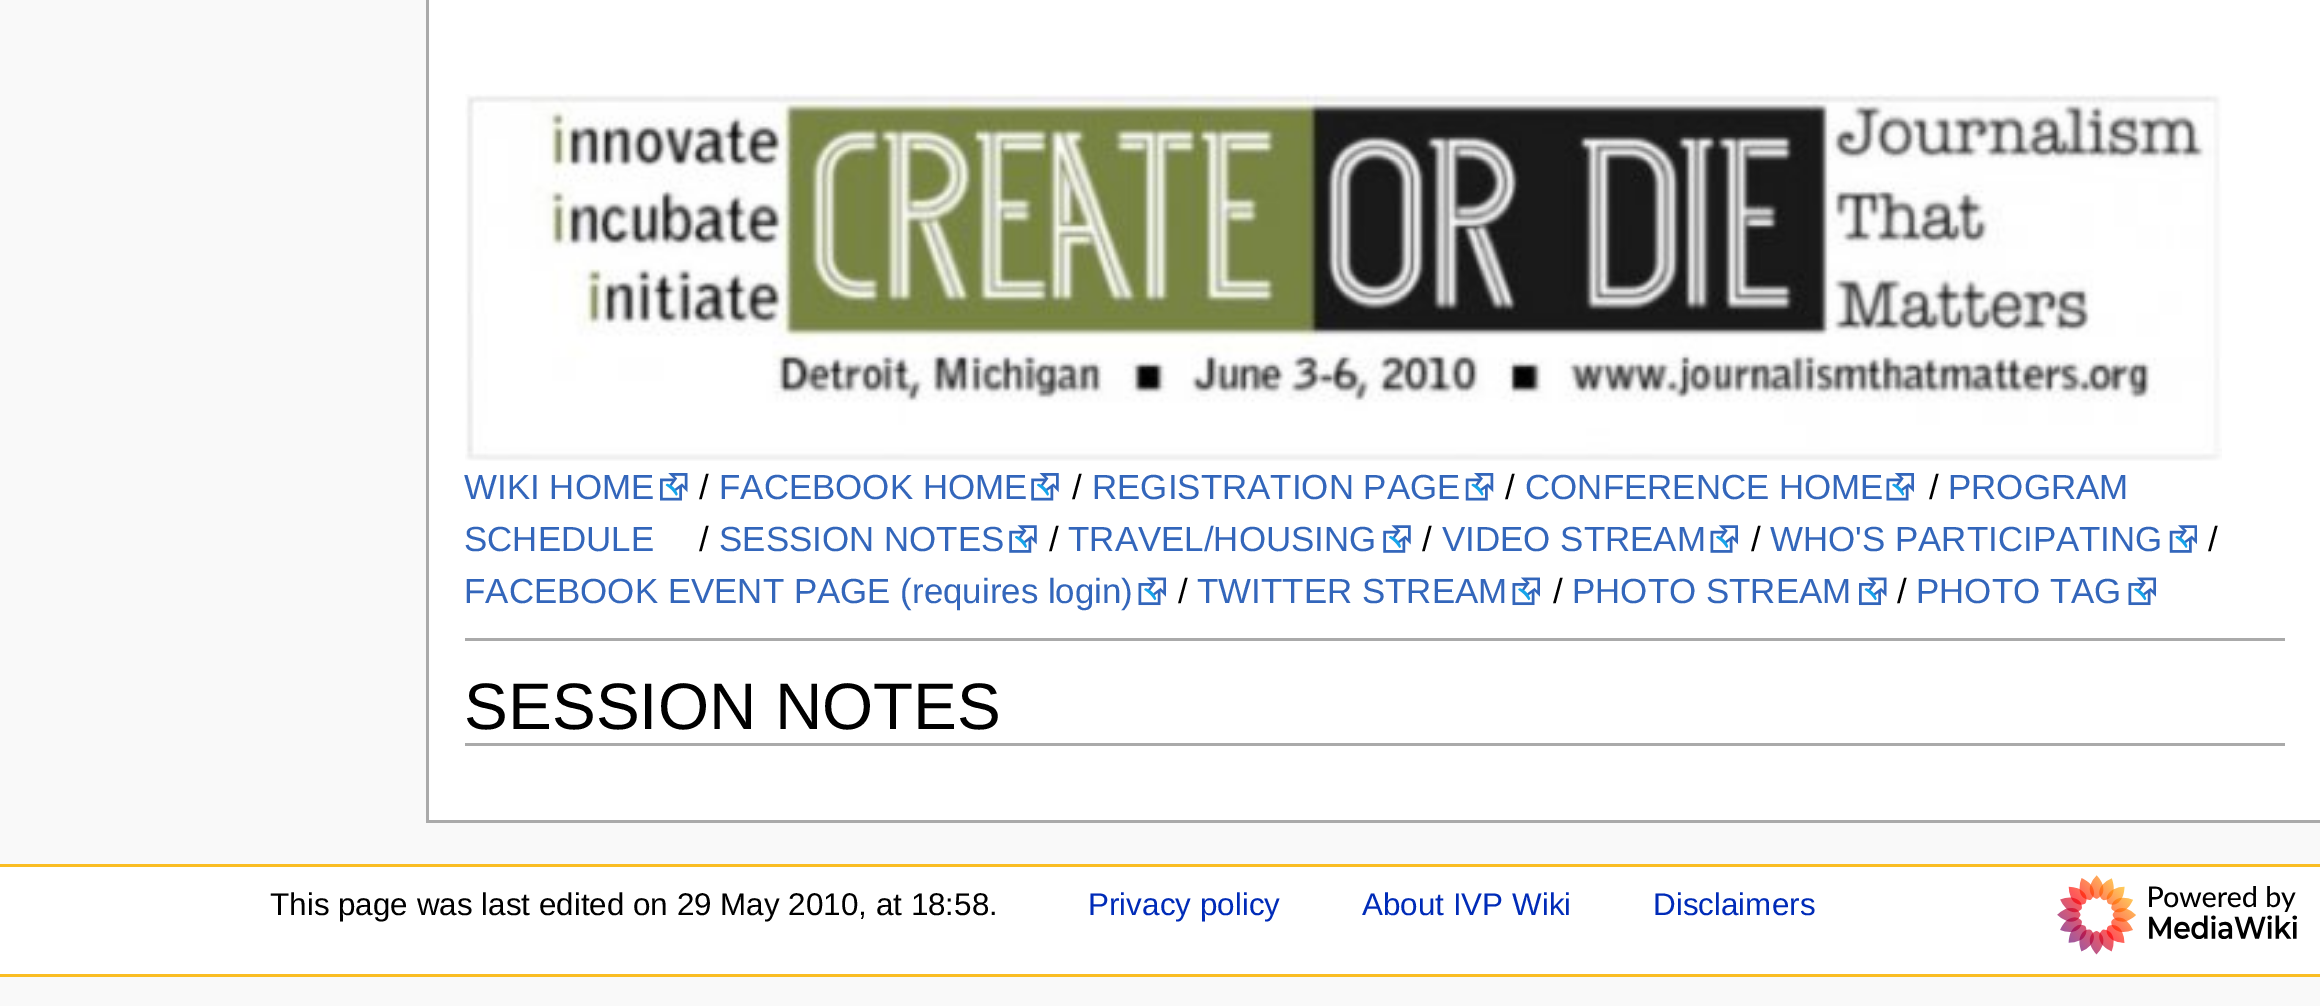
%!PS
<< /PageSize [2320 1006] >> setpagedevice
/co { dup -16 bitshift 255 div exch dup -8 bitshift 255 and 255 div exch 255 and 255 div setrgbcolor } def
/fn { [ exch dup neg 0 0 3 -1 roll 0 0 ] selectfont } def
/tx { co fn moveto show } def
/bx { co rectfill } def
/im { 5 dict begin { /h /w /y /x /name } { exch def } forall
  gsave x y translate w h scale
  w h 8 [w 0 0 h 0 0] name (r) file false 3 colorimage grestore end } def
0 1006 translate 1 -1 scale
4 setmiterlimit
0 0 2320 1006 16#F9F9F9 bx
429 0 1891 820 16#FFFFFF bx
426 820 1894 3 16#AAAAAA bx
426 0 3 822 16#AAAAAA bx
(media/1.raw) 465 94 1757 367 im
(media/2.raw) 660 473 28 28 im
(media/3.raw) 1031 473 28 28 im
(media/4.raw) 1465 473 29 28 im
(media/5.raw) 1886 473 28 28 im
(media/6.raw) 1009 525 28 28 im
(media/6.raw) 1383 525 28 28 im
(media/7.raw) 1710 525 28 28 im
(media/8.raw) 2169 525 28 28 im
(media/9.raw) 1138 577 28 29 im
(media/9.raw) 1512 577 28 29 im
(media/10.raw) 1859 577 28 29 im
(media/9.raw) 2128 577 28 29 im
465 638 1820 3 16#AAAAAA bx
465 743 1820 3 16#AAAAAA bx
0 867 2320 107 16#FFFFFF bx
0 864 2320 3 16#FABD23 bx
0 974 2320 3 16#FABD23 bx
(media/11.raw) 2057 875 240 80 im
(WIKI HOME) 464 499 /LiberationSans-Regular 34.9 16#3366BB tx
(/) 699 499 /LiberationSans-Regular 34.9 16#000000 tx
(FACEBOOK HOME) 719 499 /LiberationSans-Regular 34.9 16#3366BB tx
(/) 1072 499 /LiberationSans-Regular 34.9 16#000000 tx
(REGISTRATION PAGE) 1092 499 /LiberationSans-Regular 34.9 16#3366BB tx
(/) 1505 499 /LiberationSans-Regular 34.9 16#000000 tx
(CONFERENCE HOME) 1525 499 /LiberationSans-Regular 34.9 16#3366BB tx
(/) 1929 499 /LiberationSans-Regular 34.9 16#000000 tx
(PROGRAM) 1948 499 /LiberationSans-Regular 34.9 16#3366BB tx
(SCHEDULE) 464 551 /LiberationSans-Regular 34.9 16#3366BB tx
(/) 699 551 /LiberationSans-Regular 34.9 16#000000 tx
(SESSION NOTES) 719 551 /LiberationSans-Regular 34.9 16#3366BB tx
(/) 1049 551 /LiberationSans-Regular 34.9 16#000000 tx
(TRAVEL/HOUSING) 1068 551 /LiberationSans-Regular 34.9 16#3366BB tx
(/) 1422 551 /LiberationSans-Regular 34.9 16#000000 tx
(VIDEO STREAM) 1442 551 /LiberationSans-Regular 34.9 16#3366BB tx
(/) 1751 551 /LiberationSans-Regular 34.9 16#000000 tx
(WHO'S PARTICIPATING) 1770 551 /LiberationSans-Regular 34.9 16#3366BB tx
(/) 2208 551 /LiberationSans-Regular 34.9 16#000000 tx
(FACEBOOK EVENT PAGE \(requires login\)) 464 603 /LiberationSans-Regular 34.9 16#3366BB tx
(/) 1178 603 /LiberationSans-Regular 34.9 16#000000 tx
(TWITTER STREAM) 1197 603 /LiberationSans-Regular 34.9 16#3366BB tx
(/) 1553 603 /LiberationSans-Regular 34.9 16#000000 tx
(PHOTO STREAM) 1572 603 /LiberationSans-Regular 34.9 16#3366BB tx
(/) 1897 603 /LiberationSans-Regular 34.9 16#000000 tx
(PHOTO TAG) 1916 603 /LiberationSans-Regular 34.9 16#3366BB tx
(SESSION NOTES) 464 729 /LiberationSans-Regular 65.75 16#000000 tx
(This page was last edited on 29 May 2010, at 18:58.) 270 915 /LiberationSans-Regular 31.4 16#000000 tx
(Privacy policy) 1088 915 /LiberationSans-Regular 31.4 16#002BB8 tx
(About IVP Wiki) 1362 915 /LiberationSans-Regular 31.4 16#002BB8 tx
(Disclaimers) 1653 915 /LiberationSans-Regular 31.4 16#002BB8 tx
showpage
